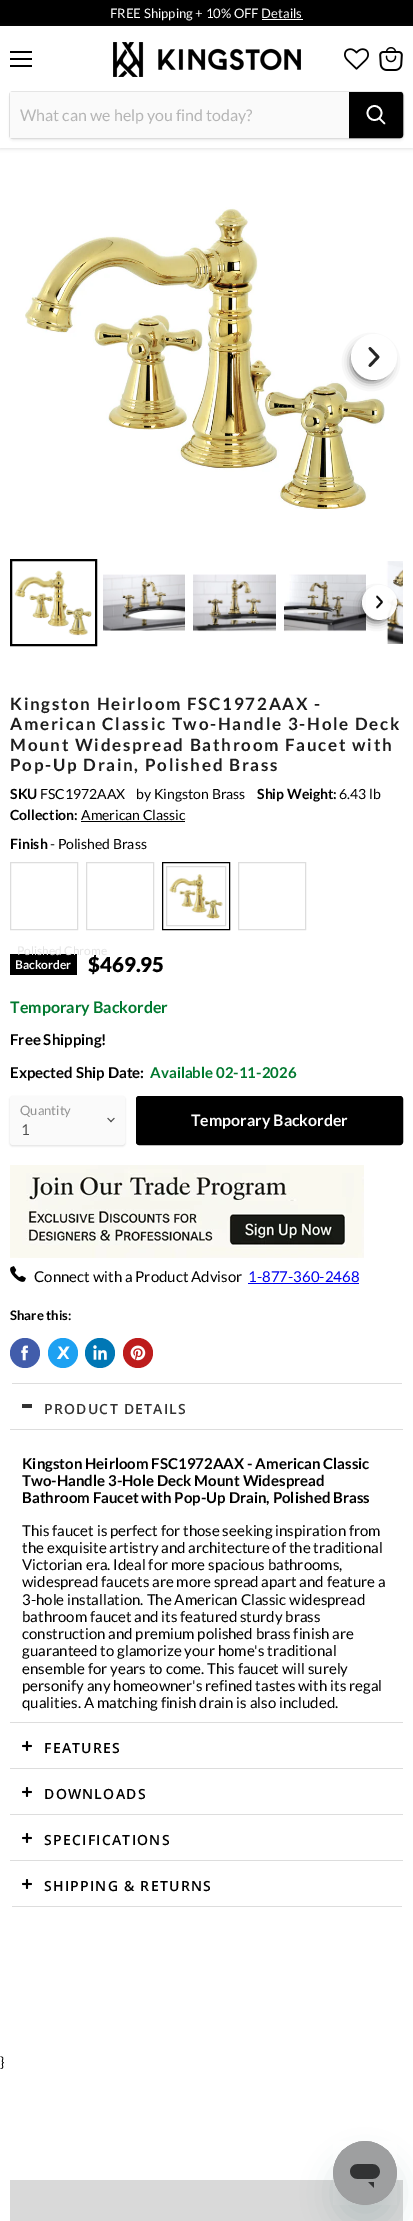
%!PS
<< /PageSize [413 2221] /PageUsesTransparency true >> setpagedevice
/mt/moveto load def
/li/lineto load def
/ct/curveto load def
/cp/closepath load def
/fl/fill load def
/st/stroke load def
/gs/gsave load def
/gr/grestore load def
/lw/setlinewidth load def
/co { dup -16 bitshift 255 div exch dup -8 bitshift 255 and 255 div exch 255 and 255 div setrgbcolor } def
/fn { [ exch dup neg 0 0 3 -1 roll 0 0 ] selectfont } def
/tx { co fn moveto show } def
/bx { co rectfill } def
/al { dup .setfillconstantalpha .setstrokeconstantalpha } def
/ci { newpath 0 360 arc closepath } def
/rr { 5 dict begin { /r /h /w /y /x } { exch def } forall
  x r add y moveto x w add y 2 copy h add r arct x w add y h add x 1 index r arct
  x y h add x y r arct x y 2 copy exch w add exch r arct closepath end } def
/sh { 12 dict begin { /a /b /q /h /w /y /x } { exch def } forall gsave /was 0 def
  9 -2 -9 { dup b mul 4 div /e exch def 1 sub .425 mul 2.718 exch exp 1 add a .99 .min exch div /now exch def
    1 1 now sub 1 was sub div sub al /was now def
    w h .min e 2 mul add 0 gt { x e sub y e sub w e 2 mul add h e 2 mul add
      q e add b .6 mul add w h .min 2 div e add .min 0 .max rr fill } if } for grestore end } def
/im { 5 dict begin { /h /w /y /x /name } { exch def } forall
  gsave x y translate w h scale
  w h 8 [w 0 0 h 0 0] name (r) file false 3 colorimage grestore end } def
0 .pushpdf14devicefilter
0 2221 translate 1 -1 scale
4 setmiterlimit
0 0 413 2221 16#FFFFFF bx
0 0 413 26 16#000000 bx
262 19 41 1 16#FFFFFF bx
16#808080 co
0 27 413 122 0 2 .25 sh
0 26 413 122 16#FFFFFF bx
10 51 22 2 16#000000 bx
10 58 22 2 16#000000 bx
10 65 22 2 16#000000 bx
(media/1.raw) 344 48 25 22 im
(media/2.raw) 379 47 24 24 im
(media/3.raw) 113 42 188 35 im
16#808080 co
9 93 395 48 4 1.5 .11 sh
0.2 al
9.5 91.5 394 47 3.5 rr st
1 al
10 92 339 46 16#FAFAFA bx
16#000000 co
349.5 92.5 mt 400 92.5 li 401.5 92.5 402.5 93.5 402.5 95 ct 402.5 135 li 402.5 136.5 401.5 137.5 400 137.5 ct 349.5 137.5 li cp gs fl gr
st
16#FFFFFF co
1.7 lw
1 setlinecap
384.5 123.5 mt 379.5 118.5 li st
0 setlinecap
374.5 113 7 ci st
(media/4.raw) 25 207 360 303 im
(media/5.raw) 32 221 349 288 im
16#262626 co
353 344 36 36 18 5 1 sh
16#FFFFFF co
374 357 23 ci fl
16#262626 co
2.8 lw
1 setlinecap
1 setlinejoin
370 348.5 mt 378 357 li 370 365.5 li st
16#000000 co
2 lw
0 setlinecap
0 setlinejoin
11 560 85 85 rectstroke
(media/6.raw) 14 570 78 66 im
(media/7.raw) 103 574 82 57 im
(media/8.raw) 193 574 83 58 im
(media/9.raw) 284 574 82 58 im
(media/10.raw) 386 561 17 83 im
gs
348 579 mt 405 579 li 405 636 li 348 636 li cp 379.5 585 mt 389 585 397 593 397 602.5 ct 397 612 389 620 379.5 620 ct 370 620 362 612 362 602.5 ct 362 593 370 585 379.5 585 ct cp eoclip newpath
364 595 25 25 12.5 5 .95 sh
gr
0.95 al
16#FFFFFF co
379.5 602.5 17.5 ci fl
1 al
16#0D0D0D co
1.8 lw
1 setlinecap
1 setlinejoin
377 596.5 mt 382 602 li 377 607.5 li st
81 821 104 1 16#000000 bx
16#DDDDDD co
1 lw
0 setlinecap
0 setlinejoin
86.5 862.5 67 67 rectstroke
16#000000 co
162.5 862.5 67 67 rectstroke
(media/11.raw) 167 874 56 46 im
16#DDDDDD co
166.5 866.5 59 59 rectstroke
238.5 862.5 67 67 rectstroke
10.5 862.5 67 67 rectstroke
10 954 67 21 16#000000 bx
10 1097 115 49 3 1 .15 sh
16#FAFAFA co
10.5 1096.5 114 48 2.5 rr gs fl gr
st
(media/12.raw) 107 1117 8 6 im
16#000000 co
136.5 1096.5 266 48 2.5 rr gs fl gr
st
(media/13.raw) 10 1165 354 93 im
(media/14.raw) 10 1266 16 16 im
248 1283 111 1 16#0000EE bx
16#425DAB co
25 1353 15 ci fl
(media/15.raw) 21 1345 7 16 im
16#1DA1F2 co
63 1353 15 ci fl
(media/16.raw) 56 1346 14 13 im
16#0077B5 co
100 1353 15 ci fl
(media/17.raw) 93 1345 14 15 im
16#BD1C1C co
138 1353 15 ci fl
(media/18.raw) 130 1345 16 16 im
12 1383 390 1 16#DDDDDD bx
10 1429 393 1 16#DDDDDD bx
22 1404 10 4 16#333333 bx
10 1722 393 1 16#DDDDDD bx
(media/19.raw) 22 1741 10 10 im
10 1768 393 1 16#DDDDDD bx
(media/19.raw) 22 1787 10 10 im
10 1814 393 1 16#DDDDDD bx
(media/19.raw) 22 1833 10 10 im
10 1860 393 1 16#DDDDDD bx
12 1906 390 1 16#DDDDDD bx
(media/19.raw) 22 1879 10 10 im
10 2180 393 41 16#D9D9D9 bx
16#17494D co
333 2161 64 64 32 15 .15 sh
(media/20.raw) 333 2141 64 64 im
(FREE Shipping + 10% OFF Details) 110 18 /Lato-Regular 13.1 16#FFFFFF tx
(What can we help you find today?) 20 121 /Lato-Regular 16 16#B5B5B5 tx
/Lato-Bold 17 fn
16#1D1D1D co
10 710 mt 1.7 0 (Kingston Heirloom FSC1972AAX -) ashow
10 730 mt 1.7 0 (American Classic Two-Handle 3-Hole Deck) ashow
10 751 mt 1.7 0 (Mount Widespread Bathroom Faucet with) ashow
10 771 mt 1.7 0 (Pop-Up Drain, Polished Brass) ashow
(SKU) 10 799 /Lato-Bold 14 16#000000 tx
(FSC1972AAX    by Kingston Brass) 40 799 /Lato-Regular 14 16#000000 tx
(Ship Weight:) 257 799 /Lato-Bold 14 16#000000 tx
(6.43 lb) 339 799 /Lato-Regular 14 16#000000 tx
(Collection:) 10 820 /Lato-Bold 14 16#000000 tx
(American Classic) 81 820 /Lato-Regular 14 16#000000 tx
(Finish) 10 849 /Lato-Bold 14 16#000000 tx
(- Polished Brass) 50 849 /Lato-Regular 14 16#000000 tx
(Polished Chrome) 17 955 /Lato-Regular 12 16#E4E4E4 tx
(Backorder) 15 969 /Lato-Bold 12 16#FFFFFF tx
($469.95) 88 972 /Lato-Black 20.5 16#000000 tx
(Temporary Backorder) 10 1013 /Lato-Bold 16 16#00782E tx
(Free Shipping!) 10 1045 /Lato-Bold 15 16#000000 tx
(Expected Ship Date:) 10 1078 /Lato-Bold 15 16#000000 tx
(Available 02-11-2026) 150 1078 /Lato-Bold 15 16#00782E tx
(Quantity) 20 1115 /Lato-Regular 13 16#929292 tx
(1) 21 1135 /Lato-Regular 15 16#4D4D4D tx
(Temporary Backorder) 191 1126 /Lato-Bold 15.9 16#FFFFFF tx
(Connect with a Product Advisor) 34 1282 /Lato-Regular 15 16#000000 tx
(1-877-360-2468) 248 1282 /Lato-Regular 15 16#0000EE tx
(Share this:) 10 1320 /Lato-Bold 13.1 16#000000 tx
/OpenSans-SemiBold 14 fn
16#333333 co
44 1414 mt 1.25 0 (PRODUCT DETAILS) ashow
(Kingston Heirloom FSC1972AAX - American Classic) 22 1469 /Lato-Bold 15 16#000000 tx
(Two-Handle 3-Hole Deck Mount Widespread) 22 1486 /Lato-Bold 15 16#000000 tx
(Bathroom Faucet with Pop-Up Drain, Polished Brass) 22 1503 /Lato-Bold 15 16#000000 tx
(This faucet is perfect for those seeking inspiration from) 22 1536 /Lato-Regular 15 16#000000 tx
(the exquisite artistry and architecture of the traditional) 22 1553 /Lato-Regular 15 16#000000 tx
(Victorian era. Ideal for more spacious bathrooms,) 22 1570 /Lato-Regular 15 16#000000 tx
(widespread faucets are more spread apart and feature a) 22 1587 /Lato-Regular 15 16#000000 tx
(3-hole installation. The American Classic widespread) 22 1605 /Lato-Regular 15 16#000000 tx
(bathroom faucet and its featured sturdy brass) 22 1622 /Lato-Regular 15 16#000000 tx
(construction and premium polished brass finish are) 22 1639 /Lato-Regular 15 16#000000 tx
(guaranteed to glamorize your home's traditional) 22 1656 /Lato-Regular 15 16#000000 tx
(ensemble for years to come. This faucet will surely) 22 1674 /Lato-Regular 15 16#000000 tx
(personify any homeowner's refined tastes with its regal) 22 1691 /Lato-Regular 15 16#000000 tx
(qualities. A matching finish drain is also included.) 22 1708 /Lato-Regular 15 16#000000 tx
/OpenSans-SemiBold 14 fn
44 1753 mt 1.25 0 (FEATURES) ashow
44 1799 mt 1.25 0 (DOWNLOADS) ashow
44 1845 mt 1.25 0 (SPECIFICATIONS) ashow
44 1891 mt 1.25 0 (SHIPPING & RETURNS) ashow
(}) 0 2067 /Lato-Regular 14 16#000000 tx
.poppdf14devicefilter showpage
